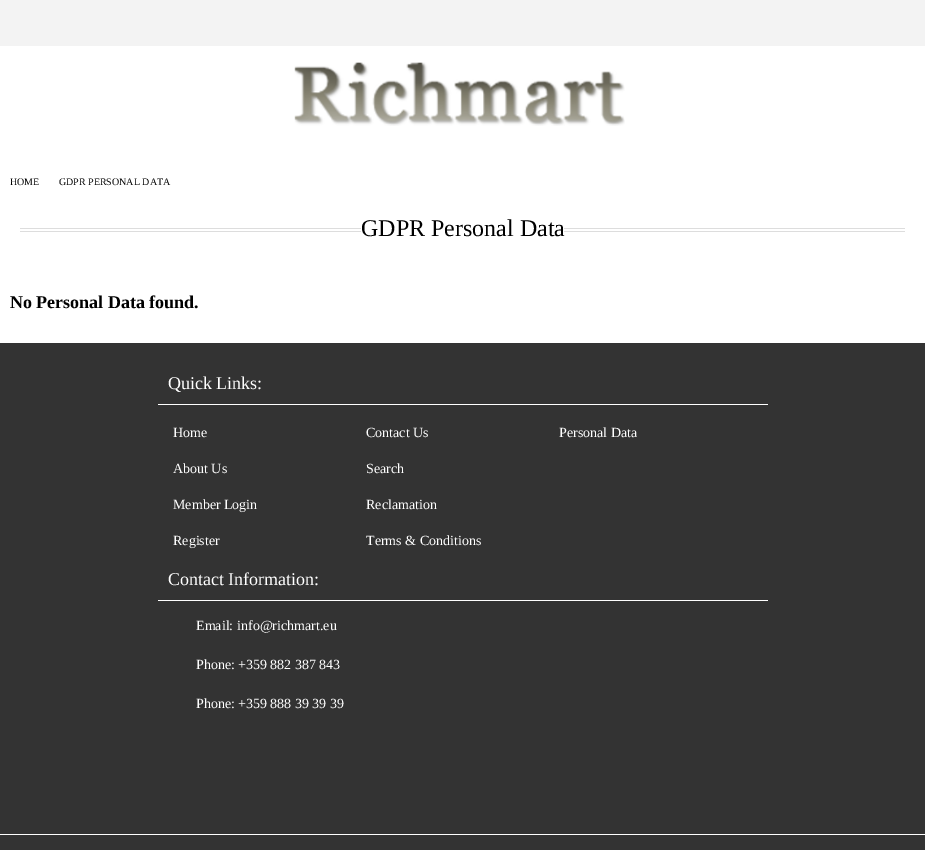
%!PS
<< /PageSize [925 850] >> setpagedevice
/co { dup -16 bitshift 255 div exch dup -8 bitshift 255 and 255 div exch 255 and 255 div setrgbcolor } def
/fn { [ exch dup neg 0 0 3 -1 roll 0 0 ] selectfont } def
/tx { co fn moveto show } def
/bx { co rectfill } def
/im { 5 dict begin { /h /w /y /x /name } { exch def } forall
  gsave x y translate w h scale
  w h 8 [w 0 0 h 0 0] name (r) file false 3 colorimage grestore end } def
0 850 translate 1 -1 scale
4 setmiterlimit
0 0 925 850 16#FFFFFF bx
0 0 925 46 16#F3F3F3 bx
(media/1.raw) 294 62 331 64 im
20 228 885 1 16#DDDDDD bx
20 231 885 1 16#DDDDDD bx
361 228 203 4 16#FFFFFF bx
0 343 925 507 16#333333 bx
158 404 610 1 16#FFFFFF bx
158 600 610 1 16#FFFFFF bx
0 834 925 1 16#FFFFFF bx
(HOME) 10 185 /LiberationSerif-Regular 10 16#000000 tx
(GDPR PERSONAL DATA) 59 185 /LiberationSerif-Regular 10 16#000000 tx
(GDPR Personal Data) 361 236 /LiberationSerif-Regular 24 16#000000 tx
(No Personal Data found.) 10 308 /LiberationSerif-Bold 18 16#000000 tx
(Quick Links:) 168 389 /LiberationSerif-Regular 18 16#FFFFFF tx
(Home) 173 437 /LiberationSerif-Regular 14 16#FFFFFF tx
(About Us) 173 473 /LiberationSerif-Regular 14 16#FFFFFF tx
(Member Login) 173 509 /LiberationSerif-Regular 14 16#FFFFFF tx
(Register) 173 545 /LiberationSerif-Regular 14 16#FFFFFF tx
(Contact Us) 366 437 /LiberationSerif-Regular 14 16#FFFFFF tx
(Search) 366 473 /LiberationSerif-Regular 14 16#FFFFFF tx
(Reclamation) 366 509 /LiberationSerif-Regular 14 16#FFFFFF tx
(Terms & Conditions) 366 545 /LiberationSerif-Regular 14 16#FFFFFF tx
(Personal Data) 559 437 /LiberationSerif-Regular 14 16#FFFFFF tx
(Contact Information:) 168 585 /LiberationSerif-Regular 18 16#FFFFFF tx
(Email:) 196 630 /LiberationSerif-Regular 14 16#FFFFFF tx
(info@richmart.eu) 237 630 /LiberationSerif-Regular 14 16#FFFFFF tx
(Phone:) 196 669 /LiberationSerif-Regular 14 16#FFFFFF tx
(+359 882 387 843) 238 669 /LiberationSerif-Regular 14 16#FFFFFF tx
(Phone:) 196 708 /LiberationSerif-Regular 14 16#FFFFFF tx
(+359 888 39 39 39) 238 708 /LiberationSerif-Regular 14 16#FFFFFF tx
showpage
